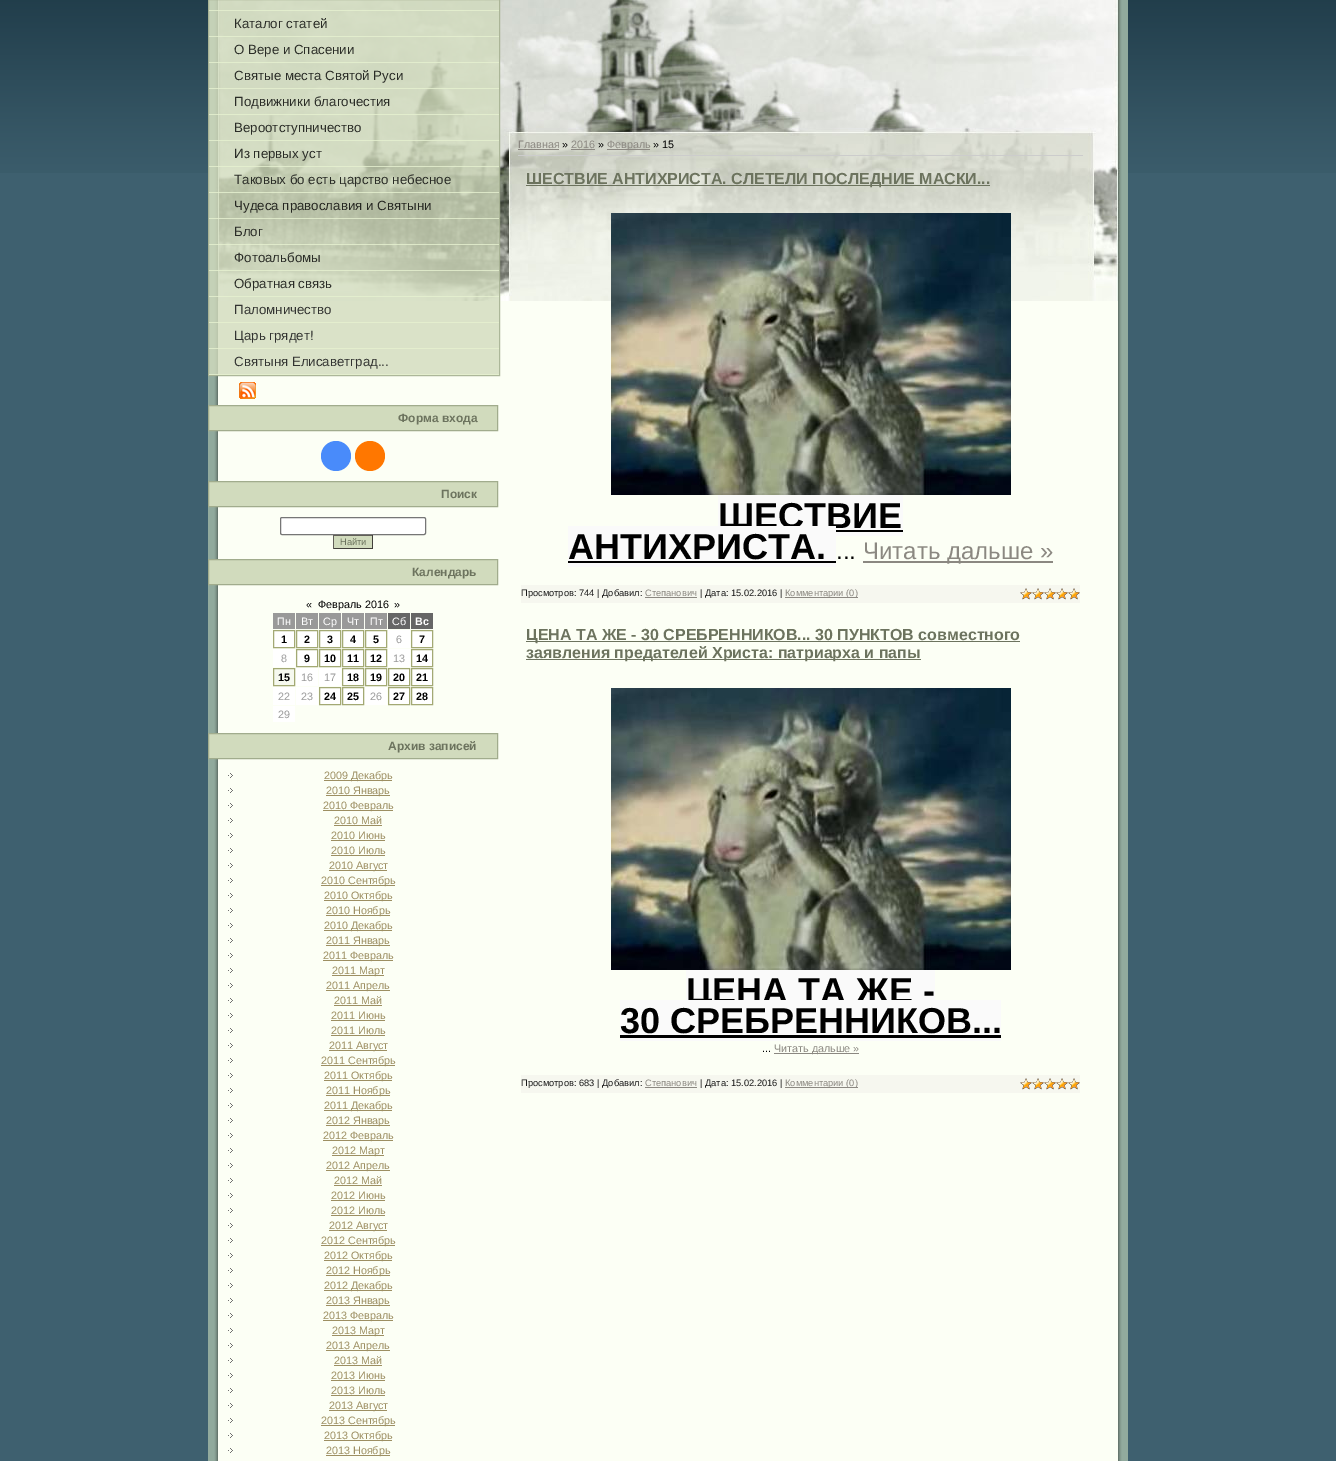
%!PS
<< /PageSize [1336 1461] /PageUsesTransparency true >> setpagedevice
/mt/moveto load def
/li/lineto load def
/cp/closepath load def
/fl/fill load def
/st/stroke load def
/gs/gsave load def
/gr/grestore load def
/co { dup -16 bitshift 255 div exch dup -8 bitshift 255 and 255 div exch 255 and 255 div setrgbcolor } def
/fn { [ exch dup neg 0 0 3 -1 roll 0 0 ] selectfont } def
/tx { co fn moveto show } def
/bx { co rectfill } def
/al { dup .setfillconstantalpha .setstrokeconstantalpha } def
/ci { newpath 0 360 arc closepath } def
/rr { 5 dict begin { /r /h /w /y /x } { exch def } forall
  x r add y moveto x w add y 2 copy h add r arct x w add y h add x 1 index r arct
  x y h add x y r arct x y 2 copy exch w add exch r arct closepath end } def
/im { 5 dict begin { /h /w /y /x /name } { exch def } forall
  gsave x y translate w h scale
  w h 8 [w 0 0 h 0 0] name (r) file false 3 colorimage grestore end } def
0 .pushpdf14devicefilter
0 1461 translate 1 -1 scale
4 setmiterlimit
0 0 1336 1461 16#3E606F bx
(media/1.raw) 0 0 1336 173 im
(media/2.raw) 208 0 920 1461 im
(media/3.raw) 216 0 904 301 im
0.8 al
208 0 292 376 16#D1DBBD bx
16#A1AC8D co
208.5 -.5 291 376 rectstroke
209 10 290 1 16#E6F1D0 bx
209 36 290 1 16#E6F1D0 bx
209 62 290 1 16#E6F1D0 bx
209 88 290 1 16#E6F1D0 bx
209 114 290 1 16#E6F1D0 bx
209 140 290 1 16#E6F1D0 bx
209 166 290 1 16#E6F1D0 bx
209 192 290 1 16#E6F1D0 bx
209 218 290 1 16#E6F1D0 bx
209 244 290 1 16#E6F1D0 bx
209 270 290 1 16#E6F1D0 bx
209 296 290 1 16#E6F1D0 bx
209 322 290 1 16#E6F1D0 bx
209 348 290 1 16#E6F1D0 bx
209 374 290 1 16#E6F1D0 bx
1 al
(media/4.raw) 239 382 17 17 im
16#D1DBBD co
208.5 405.5 mt 497.5 405.5 li 497.5 430.5 li 208.5 430.5 li cp gs fl gr
16#A1AC8D co
st
16#498BFA co
336 456 15 ci fl
16#FF7700 co
370 456 15 ci fl
16#D1DBBD co
208.5 481.5 mt 497.5 481.5 li 497.5 506.5 li 208.5 506.5 li cp gs fl gr
16#A1AC8D co
st
16#FFFFFF co
280.5 517.5 145 17 1.5 rr gs fl gr
16#767676 co
st
334 536 38 12 16#D1DBBD bx
333 535 40 1 16#615E58 bx
372 535 1 14 16#413F3B bx
333 548 40 1 16#413F3B bx
333 535 1 14 16#615E58 bx
16#D1DBBD co
208.5 559.5 mt 497.5 559.5 li 497.5 584.5 li 208.5 584.5 li cp gs fl gr
16#A1AC8D co
st
273 613 22 16 16#999999 bx
296 613 22 16 16#999999 bx
319 613 22 16 16#999999 bx
342 613 22 16 16#999999 bx
365 613 22 16 16#999999 bx
388 613 22 16 16#666666 bx
411 613 22 16 16#666666 bx
16#FFFFFF co
273.5 630.5 mt 294.5 630.5 li 294.5 647.5 li 273.5 647.5 li cp gs fl gr
16#A3A974 co
st
16#FFFFFF co
296.5 630.5 mt 317.5 630.5 li 317.5 647.5 li 296.5 647.5 li cp gs fl gr
16#A3A974 co
st
16#FFFFFF co
319.5 630.5 mt 340.5 630.5 li 340.5 647.5 li 319.5 647.5 li cp gs fl gr
16#A3A974 co
st
16#FFFFFF co
342.5 630.5 mt 363.5 630.5 li 363.5 647.5 li 342.5 647.5 li cp gs fl gr
16#A3A974 co
st
16#FFFFFF co
365.5 630.5 mt 386.5 630.5 li 386.5 647.5 li 365.5 647.5 li cp gs fl gr
16#A3A974 co
st
388 630 22 18 16#FFFFFF bx
411.5 630.5 mt 432.5 630.5 li 432.5 647.5 li 411.5 647.5 li cp gs fl gr
16#A3A974 co
st
273 649 22 18 16#FFFFFF bx
296.5 649.5 mt 317.5 649.5 li 317.5 666.5 li 296.5 666.5 li cp gs fl gr
16#A3A974 co
st
16#FFFFFF co
319.5 649.5 mt 340.5 649.5 li 340.5 666.5 li 319.5 666.5 li cp gs fl gr
16#A3A974 co
st
16#FFFFFF co
342.5 649.5 mt 363.5 649.5 li 363.5 666.5 li 342.5 666.5 li cp gs fl gr
16#A3A974 co
st
16#FFFFFF co
365.5 649.5 mt 386.5 649.5 li 386.5 666.5 li 365.5 666.5 li cp gs fl gr
16#A3A974 co
st
388 649 22 18 16#FFFFFF bx
411.5 649.5 mt 432.5 649.5 li 432.5 666.5 li 411.5 666.5 li cp gs fl gr
16#A3A974 co
st
16#F6F9EF co
273.5 668.5 mt 294.5 668.5 li 294.5 685.5 li 273.5 685.5 li cp gs fl gr
16#A3A974 co
st
296 668 22 18 16#FFFFFF bx
319 668 22 18 16#FFFFFF bx
342.5 668.5 mt 363.5 668.5 li 363.5 685.5 li 342.5 685.5 li cp gs fl gr
16#A3A974 co
st
16#FFFFFF co
365.5 668.5 mt 386.5 668.5 li 386.5 685.5 li 365.5 685.5 li cp gs fl gr
16#A3A974 co
st
16#FFFFFF co
388.5 668.5 mt 409.5 668.5 li 409.5 685.5 li 388.5 685.5 li cp gs fl gr
16#A3A974 co
st
16#FFFFFF co
411.5 668.5 mt 432.5 668.5 li 432.5 685.5 li 411.5 685.5 li cp gs fl gr
16#A3A974 co
st
273 687 22 18 16#FFFFFF bx
296 687 22 18 16#FFFFFF bx
319.5 687.5 mt 340.5 687.5 li 340.5 704.5 li 319.5 704.5 li cp gs fl gr
16#A3A974 co
st
16#FFFFFF co
342.5 687.5 mt 363.5 687.5 li 363.5 704.5 li 342.5 704.5 li cp gs fl gr
16#A3A974 co
st
365 687 22 18 16#FFFFFF bx
388.5 687.5 mt 409.5 687.5 li 409.5 704.5 li 388.5 704.5 li cp gs fl gr
16#A3A974 co
st
16#FFFFFF co
411.5 687.5 mt 432.5 687.5 li 432.5 704.5 li 411.5 704.5 li cp gs fl gr
16#A3A974 co
st
273 706 22 16 16#FFFFFF bx
16#D1DBBD co
208.5 733.5 mt 497.5 733.5 li 497.5 758.5 li 208.5 758.5 li cp gs fl gr
16#A1AC8D co
st
(media/5.raw) 228 773 5 5 im
324 780 68 1 16#9D8F62 bx
(media/5.raw) 228 788 5 5 im
326 795 64 1 16#9D8F62 bx
(media/5.raw) 228 803 5 5 im
323 810 70 1 16#9D8F62 bx
(media/5.raw) 228 818 5 5 im
334 825 48 1 16#9D8F62 bx
(media/5.raw) 228 833 5 5 im
331 840 54 1 16#9D8F62 bx
(media/5.raw) 228 848 5 5 im
331 855 54 1 16#9D8F62 bx
(media/5.raw) 228 863 5 5 im
329 870 58 1 16#9D8F62 bx
(media/5.raw) 228 878 5 5 im
321 885 74 1 16#9D8F62 bx
(media/5.raw) 228 893 5 5 im
324 900 68 1 16#9D8F62 bx
(media/5.raw) 228 908 5 5 im
326 915 64 1 16#9D8F62 bx
(media/5.raw) 228 923 5 5 im
324 930 68 1 16#9D8F62 bx
(media/5.raw) 228 938 5 5 im
326 945 64 1 16#9D8F62 bx
(media/5.raw) 228 953 5 5 im
323 960 70 1 16#9D8F62 bx
(media/5.raw) 228 968 5 5 im
332 975 52 1 16#9D8F62 bx
(media/5.raw) 228 983 5 5 im
326 990 64 1 16#9D8F62 bx
(media/5.raw) 228 998 5 5 im
334 1005 48 1 16#9D8F62 bx
(media/5.raw) 228 1013 5 5 im
331 1020 54 1 16#9D8F62 bx
(media/5.raw) 228 1028 5 5 im
331 1035 54 1 16#9D8F62 bx
(media/5.raw) 228 1043 5 5 im
329 1050 58 1 16#9D8F62 bx
(media/5.raw) 228 1058 5 5 im
321 1065 74 1 16#9D8F62 bx
(media/5.raw) 228 1073 5 5 im
324 1080 68 1 16#9D8F62 bx
(media/5.raw) 228 1088 5 5 im
326 1095 64 1 16#9D8F62 bx
(media/5.raw) 228 1103 5 5 im
324 1110 68 1 16#9D8F62 bx
(media/5.raw) 228 1118 5 5 im
326 1125 64 1 16#9D8F62 bx
(media/5.raw) 228 1133 5 5 im
323 1140 70 1 16#9D8F62 bx
(media/5.raw) 228 1148 5 5 im
332 1155 52 1 16#9D8F62 bx
(media/5.raw) 228 1163 5 5 im
326 1170 64 1 16#9D8F62 bx
(media/5.raw) 228 1178 5 5 im
334 1185 48 1 16#9D8F62 bx
(media/5.raw) 228 1193 5 5 im
331 1200 54 1 16#9D8F62 bx
(media/5.raw) 228 1208 5 5 im
331 1215 54 1 16#9D8F62 bx
(media/5.raw) 228 1223 5 5 im
329 1230 58 1 16#9D8F62 bx
(media/5.raw) 228 1238 5 5 im
321 1245 74 1 16#9D8F62 bx
(media/5.raw) 228 1253 5 5 im
324 1260 68 1 16#9D8F62 bx
(media/5.raw) 228 1268 5 5 im
326 1275 64 1 16#9D8F62 bx
(media/5.raw) 228 1283 5 5 im
324 1290 68 1 16#9D8F62 bx
(media/5.raw) 228 1298 5 5 im
326 1305 64 1 16#9D8F62 bx
(media/5.raw) 228 1313 5 5 im
323 1320 70 1 16#9D8F62 bx
(media/5.raw) 228 1328 5 5 im
332 1335 52 1 16#9D8F62 bx
(media/5.raw) 228 1343 5 5 im
326 1350 64 1 16#9D8F62 bx
(media/5.raw) 228 1358 5 5 im
334 1365 48 1 16#9D8F62 bx
(media/5.raw) 228 1373 5 5 im
331 1380 54 1 16#9D8F62 bx
(media/5.raw) 228 1388 5 5 im
331 1395 54 1 16#9D8F62 bx
(media/5.raw) 228 1403 5 5 im
329 1410 58 1 16#9D8F62 bx
(media/5.raw) 228 1418 5 5 im
321 1425 74 1 16#9D8F62 bx
(media/5.raw) 228 1433 5 5 im
324 1440 68 1 16#9D8F62 bx
(media/5.raw) 228 1448 5 5 im
326 1455 64 1 16#9D8F62 bx
518 149 41 1 16#8B8881 bx
571 149 24 1 16#8B8881 bx
607 149 43 1 16#8B8881 bx
518 155 565 1 16#CCCCCC bx
526 185 464 1 16#6C735E bx
(media/6.raw) 611 213 400 282 im
718 495 185 41 16#FAFAFA bx
836 530 67 2 16#000000 bx
863 561 190 2 16#8B8881 bx
521 585 559 18 16#F6F7EF bx
645 597 52 1 16#8B8881 bx
785 597 73 1 16#8B8881 bx
(media/7.raw) 1020 588 60 12 im
(media/8.raw) 1020 588 60 12 im
526 641 494 1 16#6C735E bx
526 659 395 1 16#6C735E bx
(media/6.raw) 611 688 400 282 im
686 970 249 30 16#FAFAFA bx
774 1053 85 1 16#8B8881 bx
521 1075 559 18 16#F6F7EF bx
645 1087 52 1 16#8B8881 bx
785 1087 73 1 16#8B8881 bx
(media/7.raw) 1020 1078 60 12 im
(media/8.raw) 1020 1078 60 12 im
(Каталог статей) 234 28 /LiberationSans-Regular 13.3 16#2A2C27 tx
(О Вере и Спасении) 234 54 /LiberationSans-Regular 13.3 16#2A2C27 tx
(Святые места Святой Руси) 234 80 /LiberationSans-Regular 13.3 16#2A2C27 tx
(Подвижники благочестия) 234 106 /LiberationSans-Regular 13.3 16#2A2C27 tx
(Вероотступничество) 234 132 /LiberationSans-Regular 13.3 16#2A2C27 tx
(Из первых уст) 234 158 /LiberationSans-Regular 13.3 16#2A2C27 tx
(Таковых бо есть царство небесное) 234 184 /LiberationSans-Regular 13.3 16#2A2C27 tx
(Чудеса православия и Святыни) 234 210 /LiberationSans-Regular 13.3 16#252621 tx
(Блог) 234 236 /LiberationSans-Regular 13.3 16#2A2C27 tx
(Фотоальбомы) 234 262 /LiberationSans-Regular 13.3 16#2A2C27 tx
(Обратная связь) 234 288 /LiberationSans-Regular 13.3 16#2A2C27 tx
(Паломничество) 234 314 /LiberationSans-Regular 13.3 16#323331 tx
(Царь грядет!) 234 340 /LiberationSans-Regular 13.3 16#323331 tx
(Святыня Елисаветград...) 234 366 /LiberationSans-Regular 13.3 16#323331 tx
(Форма входа) 398 422 /LiberationSans-Bold 12 16#6C735E tx
(Поиск) 441 498 /LiberationSans-Bold 12 16#6C735E tx
(Найти) 340 545 /LiberationSans-Regular 9.3 16#6C735E tx
(Календарь) 412 576 /LiberationSans-Bold 12 16#6C735E tx
(«) 306 608 /LiberationSans-Regular 10.75 16#000000 tx
(Февраль 2016) 318 608 /LiberationSans-Regular 10.75 16#000000 tx
(») 394 608 /LiberationSans-Regular 10.75 16#000000 tx
(Пн) 277 625 /LiberationSans-Regular 10.75 16#FFFFFF tx
(Вт) 301 625 /LiberationSans-Regular 10.75 16#FFFFFF tx
(Ср) 323 625 /LiberationSans-Regular 10.75 16#FFFFFF tx
(Чт) 347 625 /LiberationSans-Regular 10.75 16#FFFFFF tx
(Пт) 370 625 /LiberationSans-Regular 10.75 16#FFFFFF tx
(Сб) 392 625 /LiberationSans-Regular 10.75 16#FFFFFF tx
(Вс) 415 625 /LiberationSans-Bold 10.75 16#FFFFFF tx
(1) 281 643 /LiberationSans-Bold 10.75 16#000000 tx
(2) 304 643 /LiberationSans-Bold 10.75 16#000000 tx
(3) 327 643 /LiberationSans-Bold 10.75 16#000000 tx
(4) 350 643 /LiberationSans-Bold 10.75 16#000000 tx
(5) 373 643 /LiberationSans-Bold 10.75 16#000000 tx
(6) 396 643 /LiberationSans-Regular 10.75 16#999999 tx
(7) 419 643 /LiberationSans-Bold 10.75 16#000000 tx
(8) 281 662 /LiberationSans-Regular 10.75 16#999999 tx
(9) 304 662 /LiberationSans-Bold 10.75 16#000000 tx
(10) 324 662 /LiberationSans-Bold 10.75 16#000000 tx
(11) 347 662 /LiberationSans-Bold 10.75 16#000000 tx
(12) 370 662 /LiberationSans-Bold 10.75 16#000000 tx
(13) 393 662 /LiberationSans-Regular 10.75 16#999999 tx
(14) 416 662 /LiberationSans-Bold 10.75 16#000000 tx
(15) 278 681 /LiberationSans-Bold 10.75 16#000000 tx
(16) 301 681 /LiberationSans-Regular 10.75 16#999999 tx
(17) 324 681 /LiberationSans-Regular 10.75 16#999999 tx
(18) 347 681 /LiberationSans-Bold 10.75 16#000000 tx
(19) 370 681 /LiberationSans-Bold 10.75 16#000000 tx
(20) 393 681 /LiberationSans-Bold 10.75 16#000000 tx
(21) 416 681 /LiberationSans-Bold 10.75 16#000000 tx
(22) 278 700 /LiberationSans-Regular 10.75 16#999999 tx
(23) 301 700 /LiberationSans-Regular 10.75 16#999999 tx
(24) 324 700 /LiberationSans-Bold 10.75 16#000000 tx
(25) 347 700 /LiberationSans-Bold 10.75 16#000000 tx
(26) 370 700 /LiberationSans-Regular 10.75 16#999999 tx
(27) 393 700 /LiberationSans-Bold 10.75 16#000000 tx
(28) 416 700 /LiberationSans-Bold 10.75 16#000000 tx
(29) 278 718 /LiberationSans-Regular 10.75 16#999999 tx
(Архив записей) 388 750 /LiberationSans-Bold 12 16#6C735E tx
(2009 Декабрь) 324 779 /LiberationSans-Regular 10.75 16#9D8F62 tx
(2010 Январь) 326 794 /LiberationSans-Regular 10.75 16#9D8F62 tx
(2010 Февраль) 323 809 /LiberationSans-Regular 10.75 16#9D8F62 tx
(2010 Май) 334 824 /LiberationSans-Regular 10.75 16#9D8F62 tx
(2010 Июнь) 331 839 /LiberationSans-Regular 10.75 16#9D8F62 tx
(2010 Июль) 331 854 /LiberationSans-Regular 10.75 16#9D8F62 tx
(2010 Август) 329 869 /LiberationSans-Regular 10.75 16#9D8F62 tx
(2010 Сентябрь) 321 884 /LiberationSans-Regular 10.75 16#9D8F62 tx
(2010 Октябрь) 324 899 /LiberationSans-Regular 10.75 16#9D8F62 tx
(2010 Ноябрь) 326 914 /LiberationSans-Regular 10.75 16#9D8F62 tx
(2010 Декабрь) 324 929 /LiberationSans-Regular 10.75 16#9D8F62 tx
(2011 Январь) 326 944 /LiberationSans-Regular 10.75 16#9D8F62 tx
(2011 Февраль) 323 959 /LiberationSans-Regular 10.75 16#9D8F62 tx
(2011 Март) 332 974 /LiberationSans-Regular 10.75 16#9D8F62 tx
(2011 Апрель) 326 989 /LiberationSans-Regular 10.75 16#9D8F62 tx
(2011 Май) 334 1004 /LiberationSans-Regular 10.75 16#9D8F62 tx
(2011 Июнь) 331 1019 /LiberationSans-Regular 10.75 16#9D8F62 tx
(2011 Июль) 331 1034 /LiberationSans-Regular 10.75 16#9D8F62 tx
(2011 Август) 329 1049 /LiberationSans-Regular 10.75 16#9D8F62 tx
(2011 Сентябрь) 321 1064 /LiberationSans-Regular 10.75 16#9D8F62 tx
(2011 Октябрь) 324 1079 /LiberationSans-Regular 10.75 16#9D8F62 tx
(2011 Ноябрь) 326 1094 /LiberationSans-Regular 10.75 16#9D8F62 tx
(2011 Декабрь) 324 1109 /LiberationSans-Regular 10.75 16#9D8F62 tx
(2012 Январь) 326 1124 /LiberationSans-Regular 10.75 16#9D8F62 tx
(2012 Февраль) 323 1139 /LiberationSans-Regular 10.75 16#9D8F62 tx
(2012 Март) 332 1154 /LiberationSans-Regular 10.75 16#9D8F62 tx
(2012 Апрель) 326 1169 /LiberationSans-Regular 10.75 16#9D8F62 tx
(2012 Май) 334 1184 /LiberationSans-Regular 10.75 16#9D8F62 tx
(2012 Июнь) 331 1199 /LiberationSans-Regular 10.75 16#9D8F62 tx
(2012 Июль) 331 1214 /LiberationSans-Regular 10.75 16#9D8F62 tx
(2012 Август) 329 1229 /LiberationSans-Regular 10.75 16#9D8F62 tx
(2012 Сентябрь) 321 1244 /LiberationSans-Regular 10.75 16#9D8F62 tx
(2012 Октябрь) 324 1259 /LiberationSans-Regular 10.75 16#9D8F62 tx
(2012 Ноябрь) 326 1274 /LiberationSans-Regular 10.75 16#9D8F62 tx
(2012 Декабрь) 324 1289 /LiberationSans-Regular 10.75 16#9D8F62 tx
(2013 Январь) 326 1304 /LiberationSans-Regular 10.75 16#9D8F62 tx
(2013 Февраль) 323 1319 /LiberationSans-Regular 10.75 16#9D8F62 tx
(2013 Март) 332 1334 /LiberationSans-Regular 10.75 16#9D8F62 tx
(2013 Апрель) 326 1349 /LiberationSans-Regular 10.75 16#9D8F62 tx
(2013 Май) 334 1364 /LiberationSans-Regular 10.75 16#9D8F62 tx
(2013 Июнь) 331 1379 /LiberationSans-Regular 10.75 16#9D8F62 tx
(2013 Июль) 331 1394 /LiberationSans-Regular 10.75 16#9D8F62 tx
(2013 Август) 329 1409 /LiberationSans-Regular 10.75 16#9D8F62 tx
(2013 Сентябрь) 321 1424 /LiberationSans-Regular 10.75 16#9D8F62 tx
(2013 Октябрь) 324 1439 /LiberationSans-Regular 10.75 16#9D8F62 tx
(2013 Ноябрь) 326 1454 /LiberationSans-Regular 10.75 16#9D8F62 tx
(Главная) 518 148 /LiberationSans-Regular 10.75 16#8B8881 tx
(») 562 148 /LiberationSans-Regular 10.75 16#000000 tx
(2016) 571 148 /LiberationSans-Regular 10.75 16#8B8881 tx
(») 598 148 /LiberationSans-Regular 10.75 16#000000 tx
(Февраль) 607 148 /LiberationSans-Regular 10.75 16#8B8881 tx
(» 15) 653 148 /LiberationSans-Regular 10.75 16#000000 tx
(ШЕСТВИЕ АНТИХРИСТА. СЛЕТЕЛИ ПОСЛЕДНИЕ МАСКИ...) 526 184 /LiberationSans-Bold 16 16#6C735E tx
(ШЕСТВИЕ) 718 528 /LiberationSans-Bold 36 16#000000 tx
568 526 268 41 16#FAFAFA bx
(АНТИХРИСТА.) 568 559 /LiberationSans-Bold 36 16#000000 tx
(...) 836 559 /LiberationSans-Regular 24 16#000000 tx
568 561 268 2 16#000000 bx
(Читать дальше ») 863 559 /LiberationSans-Regular 24 16#8B8881 tx
(Просмотров: 744 | Добавил:) 521 596 /LiberationSans-Regular 9.3 16#1A1A1A tx
(Степанович) 645 596 /LiberationSans-Regular 9.3 16#8B8881 tx
(| Дата: 15.02.2016 |) 700 596 /LiberationSans-Regular 9.3 16#1A1A1A tx
(Комментарии \(0\)) 785 596 /LiberationSans-Regular 9.3 16#8B8881 tx
(ЦЕНА ТА ЖЕ - 30 СРЕБРЕННИКОВ... 30 ПУНКТОВ совместного) 526 640 /LiberationSans-Bold 16 16#6C735E tx
(заявления предателей Христа: патриарха и папы) 526 658 /LiberationSans-Bold 16 16#6C735E tx
(ЦЕНА ТА ЖЕ -) 686 1003 /LiberationSans-Bold 36 16#000000 tx
620 1000 381 41 16#FAFAFA bx
(30 СРЕБРЕННИКОВ...) 620 1033 /LiberationSans-Bold 36 16#000000 tx
620 1035 381 3 16#000000 bx
(...) 762 1052 /LiberationSans-Regular 10.75 16#000000 tx
(Читать дальше ») 774 1052 /LiberationSans-Regular 10.75 16#8B8881 tx
(Просмотров: 683 | Добавил:) 521 1086 /LiberationSans-Regular 9.3 16#1A1A1A tx
(Степанович) 645 1086 /LiberationSans-Regular 9.3 16#8B8881 tx
(| Дата: 15.02.2016 |) 700 1086 /LiberationSans-Regular 9.3 16#1A1A1A tx
(Комментарии \(0\)) 785 1086 /LiberationSans-Regular 9.3 16#8B8881 tx
.poppdf14devicefilter showpage
